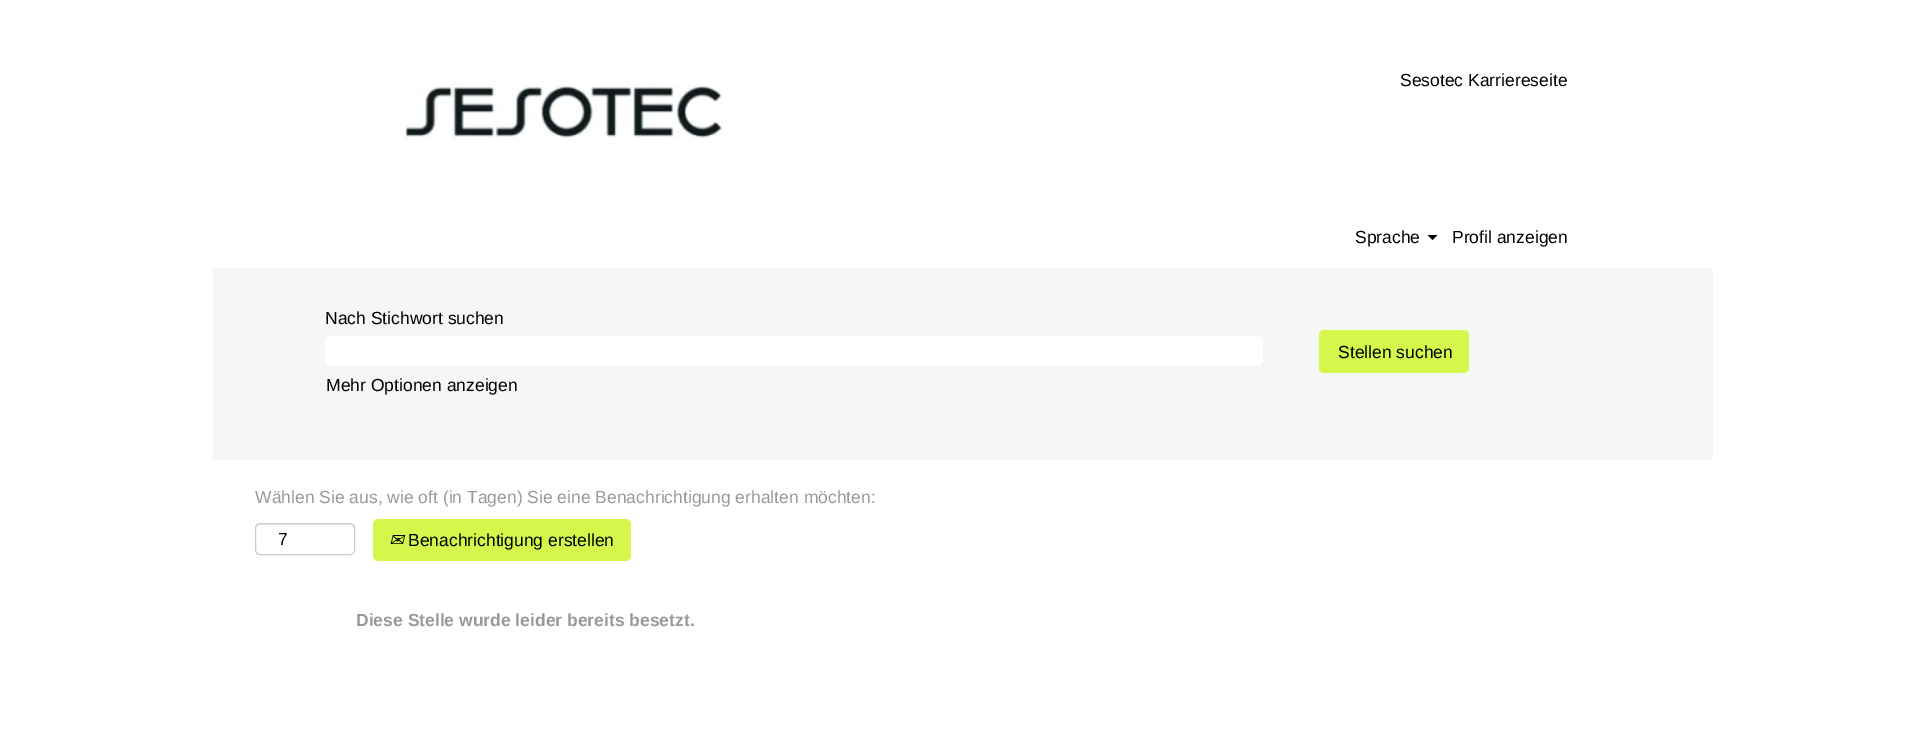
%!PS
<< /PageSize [1925 739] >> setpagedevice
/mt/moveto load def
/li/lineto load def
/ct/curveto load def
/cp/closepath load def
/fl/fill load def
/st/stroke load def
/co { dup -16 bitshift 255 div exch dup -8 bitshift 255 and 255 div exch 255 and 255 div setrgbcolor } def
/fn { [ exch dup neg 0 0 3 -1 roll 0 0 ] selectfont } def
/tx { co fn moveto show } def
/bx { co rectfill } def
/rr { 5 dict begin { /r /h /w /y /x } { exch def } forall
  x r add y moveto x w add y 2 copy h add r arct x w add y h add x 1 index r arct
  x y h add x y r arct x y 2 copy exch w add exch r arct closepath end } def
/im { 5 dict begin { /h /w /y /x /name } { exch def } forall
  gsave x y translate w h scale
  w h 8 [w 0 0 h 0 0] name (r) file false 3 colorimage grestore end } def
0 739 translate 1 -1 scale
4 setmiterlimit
0 0 1925 739 16#FFFFFF bx
(media/1.raw) 405 84 318 55 im
16#000000 co
1427.5 235 mt 1437.5 235 li 1432.5 240 li cp fl
213 268 1500 192 16#F6F6F6 bx
16#FFFFFF co
325 336 938 30 6 rr fl
16#D5F74B co
1319 330 150 43 5 rr fl
16#ECECEC co
260 525 mt 350 525 li 352 525 354 527 354 529 ct 354 520 339 524 335 524 ct 275 524 li 271 524 256 520 256 529 ct 256 527 258 525 260 525 ct cp fl
16#CCCCCC co
255.5 523.5 99 31 4.5 rr st
16#D5F74B co
373 519 258 42 5 rr fl
(Sesotec Karriereseite) 1400 86 /LiberationSans-Regular 17.5 16#000000 tx
(Sprache) 1355 243 /LiberationSans-Regular 17.5 16#000000 tx
(Profil anzeigen) 1452 243 /LiberationSans-Regular 17.5 16#000000 tx
(Nach Stichwort suchen) 325 324 /LiberationSans-Regular 17.5 16#000000 tx
(Mehr Optionen anzeigen) 326 391 /LiberationSans-Regular 17.5 16#000000 tx
(Stellen suchen) 1338 358 /LiberationSans-Regular 17.5 16#000000 tx
(Wählen Sie aus, wie oft \(in Tagen\) Sie eine Benachrichtigung erhalten möchten:) 255 503 /LiberationSans-Regular 17.5 16#999999 tx
(7) 278 545 /LiberationSans-Regular 17.5 16#000000 tx
(✉) 389 546 /DejaVuSans-Italic 17.5 16#000000 tx
(Benachrichtigung erstellen) 408 546 /LiberationSans-Regular 17.5 16#000000 tx
(Diese Stelle wurde leider bereits besetzt.) 356 626 /LiberationSans-Bold 17.5 16#999999 tx
showpage
